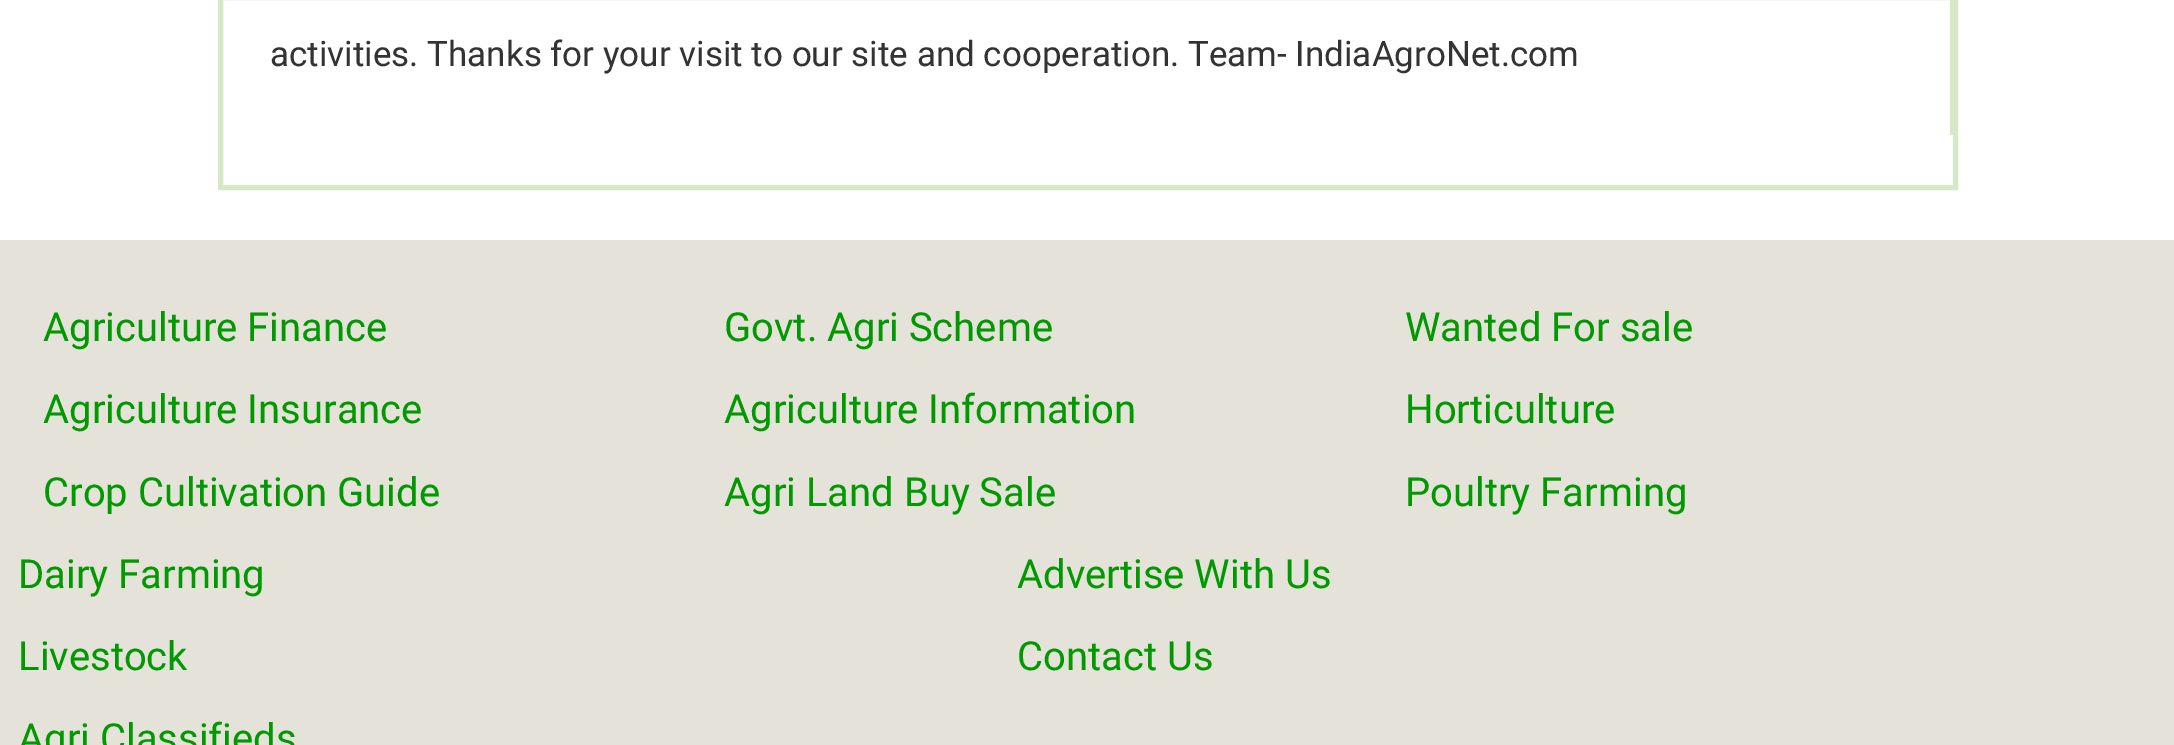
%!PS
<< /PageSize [2174 745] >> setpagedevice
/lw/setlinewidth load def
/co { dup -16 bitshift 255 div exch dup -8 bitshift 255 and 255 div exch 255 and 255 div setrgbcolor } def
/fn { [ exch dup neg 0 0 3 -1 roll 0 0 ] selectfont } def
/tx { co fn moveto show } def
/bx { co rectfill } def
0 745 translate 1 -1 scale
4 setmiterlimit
0 0 2174 745 16#FFFFFF bx
16#D6E9C6 co
5 lw
220.5 -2.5 1735 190 rectstroke
1950 0 3 135 16#D6E9C6 bx
0 240 2174 505 16#E4E2D9 bx
(activities. Thanks for your visit to our site and cooperation. Team- IndiaAgroNet.com) 270 66 /Roboto-Regular 35 16#333333 tx
(Agriculture Finance) 43 341 /Roboto-Regular 40 16#009900 tx
(Agriculture Insurance) 43 423 /Roboto-Regular 40 16#009900 tx
(Crop Cultivation Guide) 43 506 /Roboto-Regular 40 16#009900 tx
(Govt. Agri Scheme) 724 341 /Roboto-Regular 40 16#009900 tx
(Agriculture Information) 724 423 /Roboto-Regular 40 16#009900 tx
(Agri Land Buy Sale) 724 506 /Roboto-Regular 40 16#009900 tx
(Wanted For sale) 1405 341 /Roboto-Regular 40 16#009900 tx
(Horticulture) 1405 423 /Roboto-Regular 40 16#009900 tx
(Poultry Farming) 1405 506 /Roboto-Regular 40 16#009900 tx
(Dairy Farming) 18 588 /Roboto-Regular 40 16#009900 tx
(Livestock) 18 670 /Roboto-Regular 40 16#009900 tx
(Agri Classifieds) 18 752 /Roboto-Regular 40 16#009900 tx
(Advertise With Us) 1017 588 /Roboto-Regular 40 16#009900 tx
(Contact Us) 1017 670 /Roboto-Regular 40 16#009900 tx
showpage
